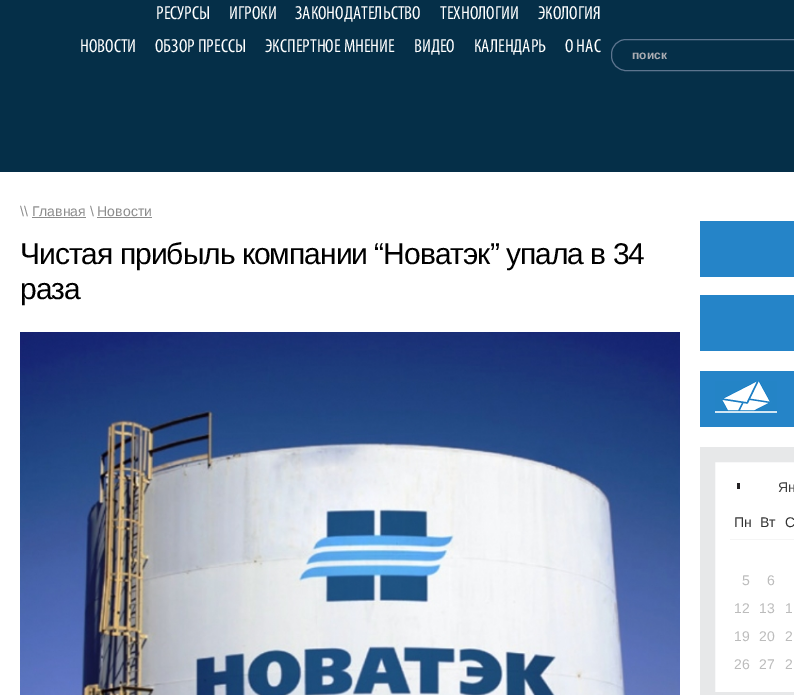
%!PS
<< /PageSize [794 695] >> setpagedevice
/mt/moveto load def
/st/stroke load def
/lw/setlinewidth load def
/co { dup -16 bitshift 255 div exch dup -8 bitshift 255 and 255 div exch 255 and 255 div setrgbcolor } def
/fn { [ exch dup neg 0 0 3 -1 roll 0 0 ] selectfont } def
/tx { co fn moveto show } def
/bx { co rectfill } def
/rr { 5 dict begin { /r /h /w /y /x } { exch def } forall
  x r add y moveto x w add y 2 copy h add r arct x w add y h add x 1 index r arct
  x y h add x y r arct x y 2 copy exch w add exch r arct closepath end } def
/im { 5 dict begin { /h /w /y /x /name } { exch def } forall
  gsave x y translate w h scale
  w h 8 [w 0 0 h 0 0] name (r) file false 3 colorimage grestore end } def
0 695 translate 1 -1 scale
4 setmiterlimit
0 0 794 695 16#052F48 bx
16#5C748E co
611.5 39.5 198 31 14.5 rr st
0 172 794 523 16#FFFFFF bx
32 217 54 1 16#8C8C8C bx
97 217 55 1 16#8C8C8C bx
(media/1.raw) 20 332 660 363 im
700 221 94 56 16#2584C8 bx
700 295 94 56 16#2584C8 bx
700 371 94 56 16#2584C8 bx
(media/2.raw) 715 381 62 32 im
16#E7E8E9 co
15 lw
707.5 454.5 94 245 rectstroke
737 483 3 6 16#242224 bx
730 539 64 1 16#F5F5F5 bx
(РЕСУРСЫ) 156 19 /Myriad-Regular 19 16#FFFFFF tx
(ИГРОКИ) 229 19 /Myriad-Regular 19 16#FFFFFF tx
(ЗАКОНОДАТЕЛЬСТВО) 295 19 /Myriad-Regular 19 16#FFFFFF tx
(ТЕХНОЛОГИИ) 440 19 /Myriad-Regular 19 16#FFFFFF tx
(ЭКОЛОГИЯ) 538 19 /Myriad-Regular 19 16#FFFFFF tx
(НОВОСТИ) 80 52 /Myriad-Regular 19 16#FFFFFF tx
(ОБЗОР ПРЕССЫ) 155 52 /Myriad-Regular 19 16#FFFFFF tx
(ЭКСПЕРТНОЕ МНЕНИЕ) 265 52 /Myriad-Regular 19 16#FFFFFF tx
(ВИДЕО) 414 52 /Myriad-Regular 19 16#FFFFFF tx
(КАЛЕНДАРЬ) 474 52 /Myriad-Regular 19 16#FFFFFF tx
(О НАС) 565 52 /Myriad-Regular 19 16#FFFFFF tx
(поиск) 632 59 /LiberationSans-Bold 12 16#ABADB3 tx
(\\\\ Главная \\ Новости) 20 216 /LiberationSans-Regular 14 16#8C8C8C tx
/LiberationSans-Regular 30 fn
16#000000 co
20 264 mt -1 0 (Чистая прибыль компании “Новатэк” упала в 34) ashow
20 299 mt -1 0 (раза) ashow
(Ян) 778 492 /LiberationSans-Regular 14 16#3F3F3F tx
(Пн) 734 527 /LiberationSans-Regular 14 16#333333 tx
(Вт) 760 527 /LiberationSans-Regular 14 16#333333 tx
(С) 785 527 /LiberationSans-Regular 14 16#333333 tx
(5) 742 585 /LiberationSans-Regular 14 16#BCBCBC tx
(6) 767 585 /LiberationSans-Regular 14 16#BCBCBC tx
(12) 734 613 /LiberationSans-Regular 14 16#BCBCBC tx
(13) 759 613 /LiberationSans-Regular 14 16#BCBCBC tx
(1) 785 613 /LiberationSans-Regular 14 16#BCBCBC tx
(19) 734 641 /LiberationSans-Regular 14 16#BCBCBC tx
(20) 759 641 /LiberationSans-Regular 14 16#BCBCBC tx
(2) 785 641 /LiberationSans-Regular 14 16#BCBCBC tx
(26) 734 669 /LiberationSans-Regular 14 16#BCBCBC tx
(27) 759 669 /LiberationSans-Regular 14 16#BCBCBC tx
(2) 785 669 /LiberationSans-Regular 14 16#BCBCBC tx
showpage
